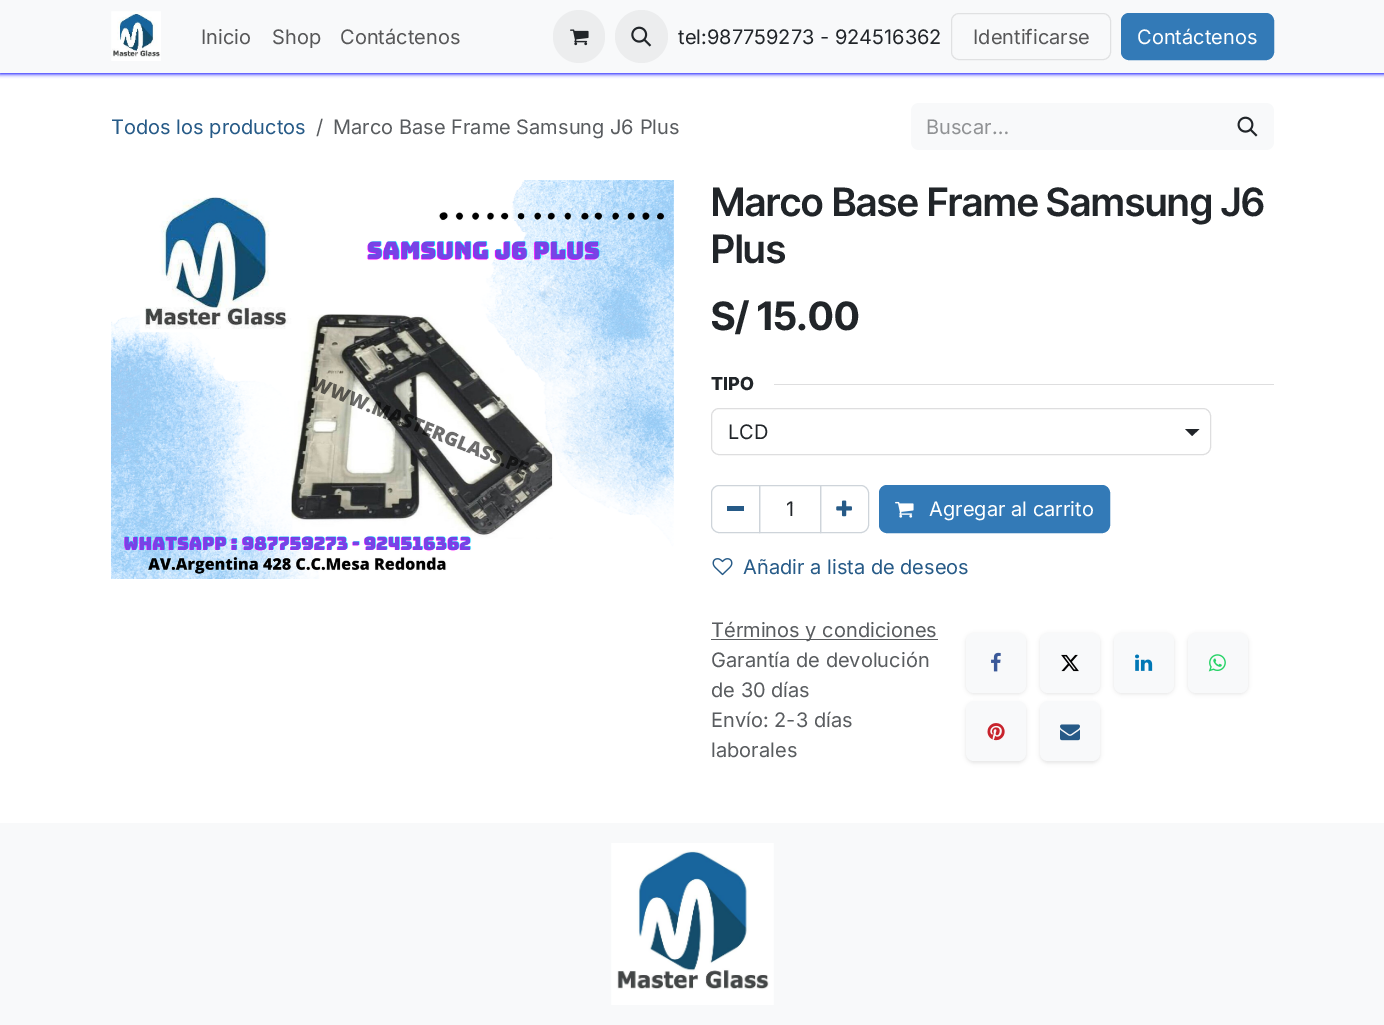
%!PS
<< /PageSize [1384 1025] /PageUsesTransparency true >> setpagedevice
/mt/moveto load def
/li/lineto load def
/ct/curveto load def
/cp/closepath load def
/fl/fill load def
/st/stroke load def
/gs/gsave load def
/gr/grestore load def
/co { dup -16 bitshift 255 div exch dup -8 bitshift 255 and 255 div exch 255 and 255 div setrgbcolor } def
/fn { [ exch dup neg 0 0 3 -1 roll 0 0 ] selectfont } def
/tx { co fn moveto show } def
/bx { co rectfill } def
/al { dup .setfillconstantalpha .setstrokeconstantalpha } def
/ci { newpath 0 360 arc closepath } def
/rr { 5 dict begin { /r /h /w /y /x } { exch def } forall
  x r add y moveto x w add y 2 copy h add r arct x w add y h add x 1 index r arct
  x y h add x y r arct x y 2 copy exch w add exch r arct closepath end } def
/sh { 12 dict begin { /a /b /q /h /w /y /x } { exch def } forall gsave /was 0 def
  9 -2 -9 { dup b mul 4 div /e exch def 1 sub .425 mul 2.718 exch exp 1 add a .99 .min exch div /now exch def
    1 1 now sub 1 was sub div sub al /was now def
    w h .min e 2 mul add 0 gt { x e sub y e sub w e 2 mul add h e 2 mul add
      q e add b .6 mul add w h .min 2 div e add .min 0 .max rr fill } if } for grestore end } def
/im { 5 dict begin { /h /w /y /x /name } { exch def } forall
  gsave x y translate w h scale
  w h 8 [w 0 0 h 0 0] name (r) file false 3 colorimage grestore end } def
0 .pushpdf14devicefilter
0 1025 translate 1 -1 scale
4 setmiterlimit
0 0 1384 1025 16#FFFFFF bx
16#0000FF co
0 1 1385 73 0 2 1 sh
0 0 1384 73 16#F8F9FA bx
(media/1.raw) 111 11 50 50 im
16#ECEDEE co
553 10 52 53 26 rr fl
(media/2.raw) 570 29 19 17 im
641.5 36.5 26.5 ci fl
(media/3.raw) 631 26 21 21 im
16#E0E1E2 co
951.5 13.5 159 46 7.5 rr st
16#337AB7 co
1121.5 13.5 152 46 7.5 rr gs fl gr
st
16#F8F9FA co
919 103 mt 1223 103 li 1223 150 li 919 150 li 914.5 150 911 146.5 911 142 ct 911 111 li 911 106.5 914.5 103 919 103 ct cp fl
1221 103 mt 1266 103 li 1270.5 103 1274 106.5 1274 111 ct 1274 142 li 1274 146.5 1270.5 150 1266 150 ct 1221 150 li cp fl
(media/4.raw) 1237 116 21 21 im
(media/5.raw) 111 180 563 399 im
774 384 500 1 16#DEDEDF bx
16#212529 co
1185 429 mt 1199.5 429 li 1192 436 li cp fl
16#DEDEDF co
711.5 408.5 499 46 7.5 rr st
16#CED4DA co
759.5 485.5 61 47 rectstroke
719 485.5 mt 759.5 485.5 li 759.5 532.5 li 719 532.5 li 715 532.5 711.5 529 711.5 525 ct 711.5 493 li 711.5 489 715 485.5 719 485.5 ct cp st
727 506 17 5 16#265A87 bx
16#CED4DA co
820.5 485.5 mt 861 485.5 li 865 485.5 868.5 489 868.5 493 ct 868.5 525 li 868.5 529 865 532.5 861 532.5 ct 820.5 532.5 li cp st
(media/6.raw) 836 500 16 17 im
16#337AB7 co
879.5 485.5 230 47 7.5 rr gs fl gr
st
(media/7.raw) 895 501 19 17 im
(media/8.raw) 712 558 21 18 im
711 639 227 1 16#595C5F bx
16#000000 co
966 634 60 60 8 2 .1 sh
16#F8F9FA co
966 633 60 60 8 rr fl
(media/9.raw) 991 652 10 20 im
16#000000 co
1040 634 60 60 8 2 .1 sh
16#F8F9FA co
1040 633 60 60 8 rr fl
(media/10.raw) 1061 654 18 18 im
16#000000 co
1114 634 60 60 8 2 .1 sh
16#F8F9FA co
1114 633 60 60 8 rr fl
(media/11.raw) 1135 654 18 17 im
16#000000 co
1188 634 60 60 8 2 .1 sh
16#F8F9FA co
1188 633 60 60 8 rr fl
(media/12.raw) 1208 654 18 18 im
16#000000 co
966 703 60 60 8 2 .1 sh
16#F8F9FA co
966 701 60 60 8 rr fl
(media/13.raw) 987 723 18 18 im
16#000000 co
1040 703 60 60 8 2 .1 sh
16#F8F9FA co
1040 701 60 60 8 rr fl
(media/14.raw) 1060 724 20 17 im
0 823 1384 202 16#F8F9FA bx
(media/15.raw) 611 843 163 162 im
(Inicio) 201 44 /Inter-Regular 20 16#575758 tx
(Shop) 272 44 /Inter-Regular 20 16#575758 tx
(Contáctenos) 340 44 /Inter-Regular 20 16#575758 tx
(tel:987759273 - 924516362) 678 44 /Inter-Regular 20 16#212529 tx
(Identificarse) 973 44 /Inter-Regular 20 16#575758 tx
(Contáctenos) 1137 44 /Inter-Regular 20 16#FFFFFF tx
(Todos los productos) 111 134 /Inter-Regular 20 16#265A87 tx
(/) 316 134 /Inter-Regular 20 16#595C5F tx
(Marco Base Frame Samsung J6 Plus) 333 134 /Inter-Regular 20 16#595C5F tx
(Buscar…) 926 134 /Inter-Regular 20 16#909294 tx
(Marco Base Frame Samsung J6) 711 216 /InterTight-SemiBold 39 16#212529 tx
(Plus) 711 263 /InterTight-SemiBold 39 16#212529 tx
(S/ 15.00) 711 330 /InterTight-Bold 39 16#212529 tx
(TIPO) 711 390 /Inter-ExtraBold 18 16#212529 tx
(LCD) 728 439 /Inter-Regular 20 16#212529 tx
(1) 786 516 /Inter-Regular 20 16#212529 tx
(Agregar al carrito) 929 516 /Inter-Regular 20 16#FFFFFF tx
(Añadir a lista de deseos) 743 574 /Inter-Regular 20 16#265A87 tx
(Términos y condiciones) 711 637 /Inter-Regular 20 16#595C5F tx
(Garantía de devolución) 711 667 /Inter-Regular 20 16#595C5F tx
(de 30 días) 711 697 /Inter-Regular 20 16#595C5F tx
(Envío: 2-3 días) 711 727 /Inter-Regular 20 16#595C5F tx
(laborales) 711 757 /Inter-Regular 20 16#595C5F tx
.poppdf14devicefilter showpage
